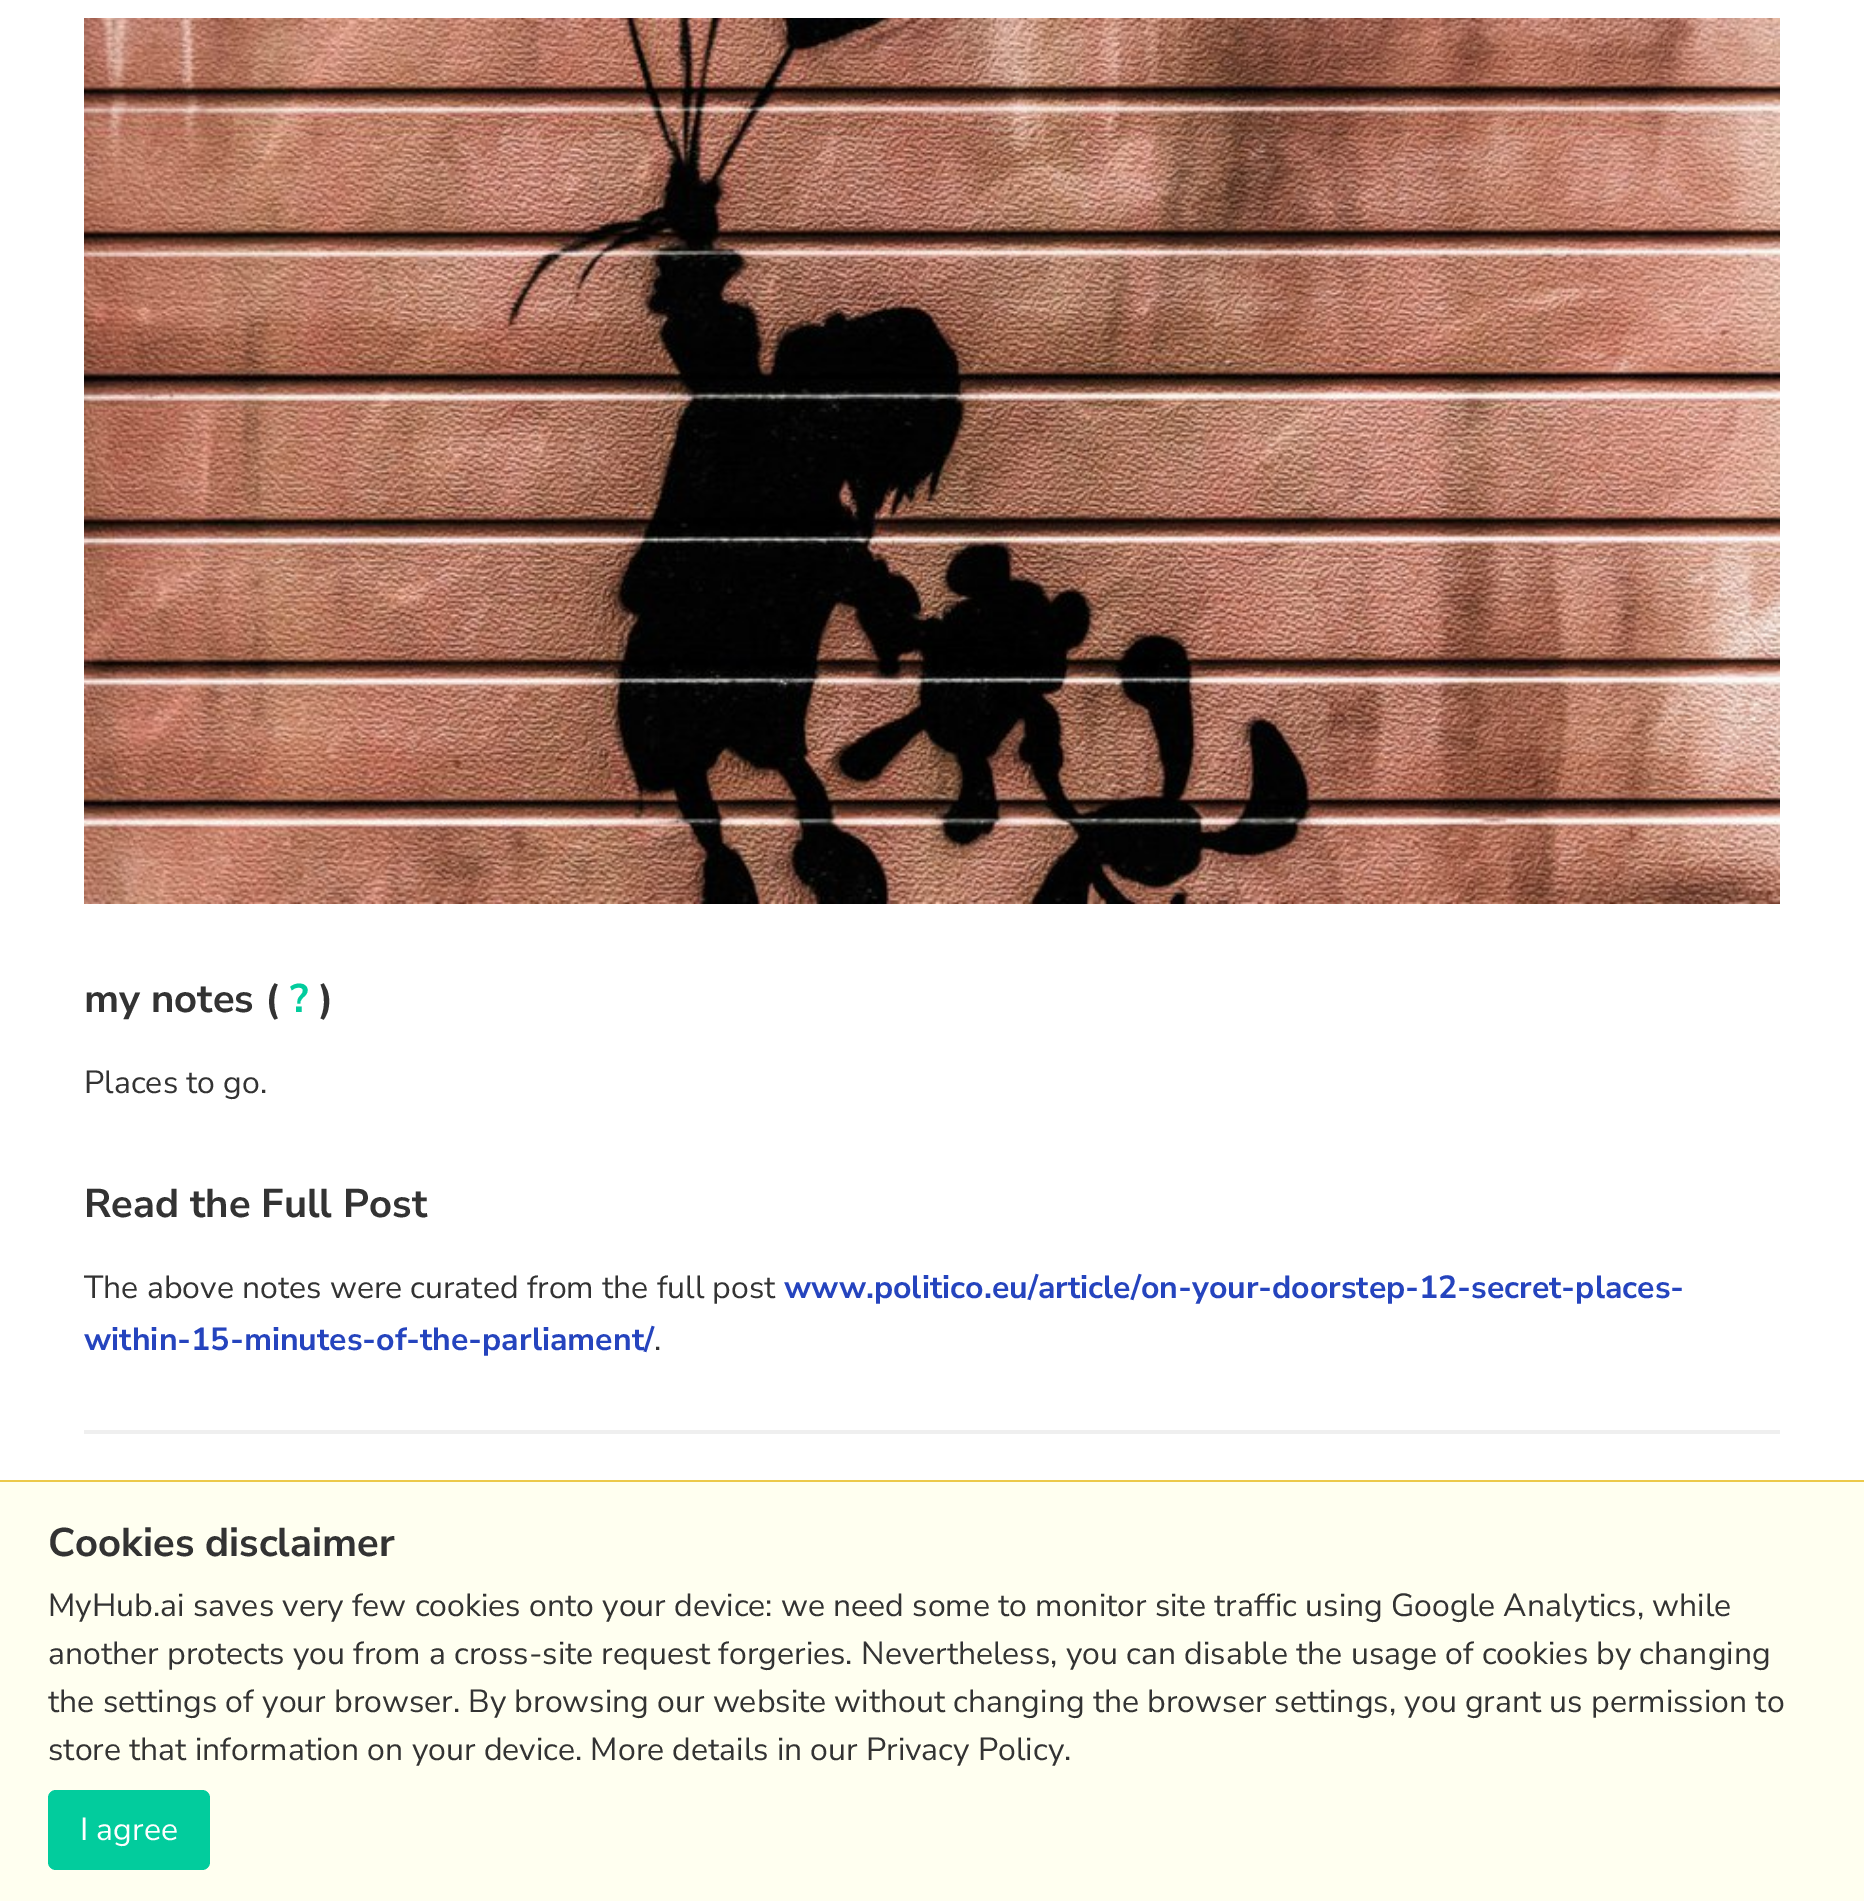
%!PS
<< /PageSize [1864 1901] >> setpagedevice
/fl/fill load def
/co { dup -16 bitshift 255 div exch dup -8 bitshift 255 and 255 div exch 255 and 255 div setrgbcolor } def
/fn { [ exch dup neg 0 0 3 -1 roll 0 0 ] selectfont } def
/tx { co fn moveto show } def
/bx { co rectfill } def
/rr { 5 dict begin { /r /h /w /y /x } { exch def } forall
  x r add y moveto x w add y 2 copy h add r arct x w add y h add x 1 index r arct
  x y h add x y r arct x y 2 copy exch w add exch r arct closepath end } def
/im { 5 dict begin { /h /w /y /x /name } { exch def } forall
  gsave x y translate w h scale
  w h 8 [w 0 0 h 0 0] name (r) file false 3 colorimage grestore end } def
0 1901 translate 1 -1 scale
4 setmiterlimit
0 0 1864 1901 16#FFFFFF bx
84 1430 1696 4 16#EFEFEF bx
(media/1.raw) 84 18 1696 886 im
0 1482 1864 419 16#FFFFF0 bx
0 1480 1864 2 16#ECC94B bx
16#02CC9D co
48 1790 162 80 8 rr fl
(my notes \() 84 1012 /NunitoSans-Bold 40 16#333333 tx
(?) 290 1012 /NunitoSans-Bold 40 16#02CC9D tx
(\)) 319 1012 /NunitoSans-Bold 40 16#333333 tx
(Places to go.) 84 1093 /NunitoSans-Regular 32 16#333333 tx
(Read the Full Post) 84 1217 /NunitoSans-Bold 40 16#333333 tx
(The above notes were curated from the full post) 84 1298 /NunitoSans-Regular 32 16#333333 tx
(www.politico.eu/article/on-your-doorstep-12-secret-places-) 784 1298 /NunitoSans-Bold 32 16#2544BE tx
(within-15-minutes-of-the-parliament/) 84 1350 /NunitoSans-Bold 32 16#2544BE tx
(.) 654 1350 /NunitoSans-Regular 32 16#333333 tx
(Cookies disclaimer) 48 1556 /NunitoSans-Bold 40 16#333333 tx
(MyHub.ai saves very few cookies onto your device: we need some to monitor site traffic using Google Analytics, while) 48 1616 /NunitoSans-Regular 32 16#333333 tx
(another protects you from a cross-site request forgeries. Nevertheless, you can disable the usage of cookies by changing) 48 1664 /NunitoSans-Regular 32 16#333333 tx
(the settings of your browser. By browsing our website without changing the browser settings, you grant us permission to) 48 1712 /NunitoSans-Regular 32 16#333333 tx
(store that information on your device. More details in our Privacy Policy.) 48 1760 /NunitoSans-Regular 32 16#333333 tx
(I agree) 80 1840 /NunitoSans-Regular 32 16#FFFFFF tx
showpage
